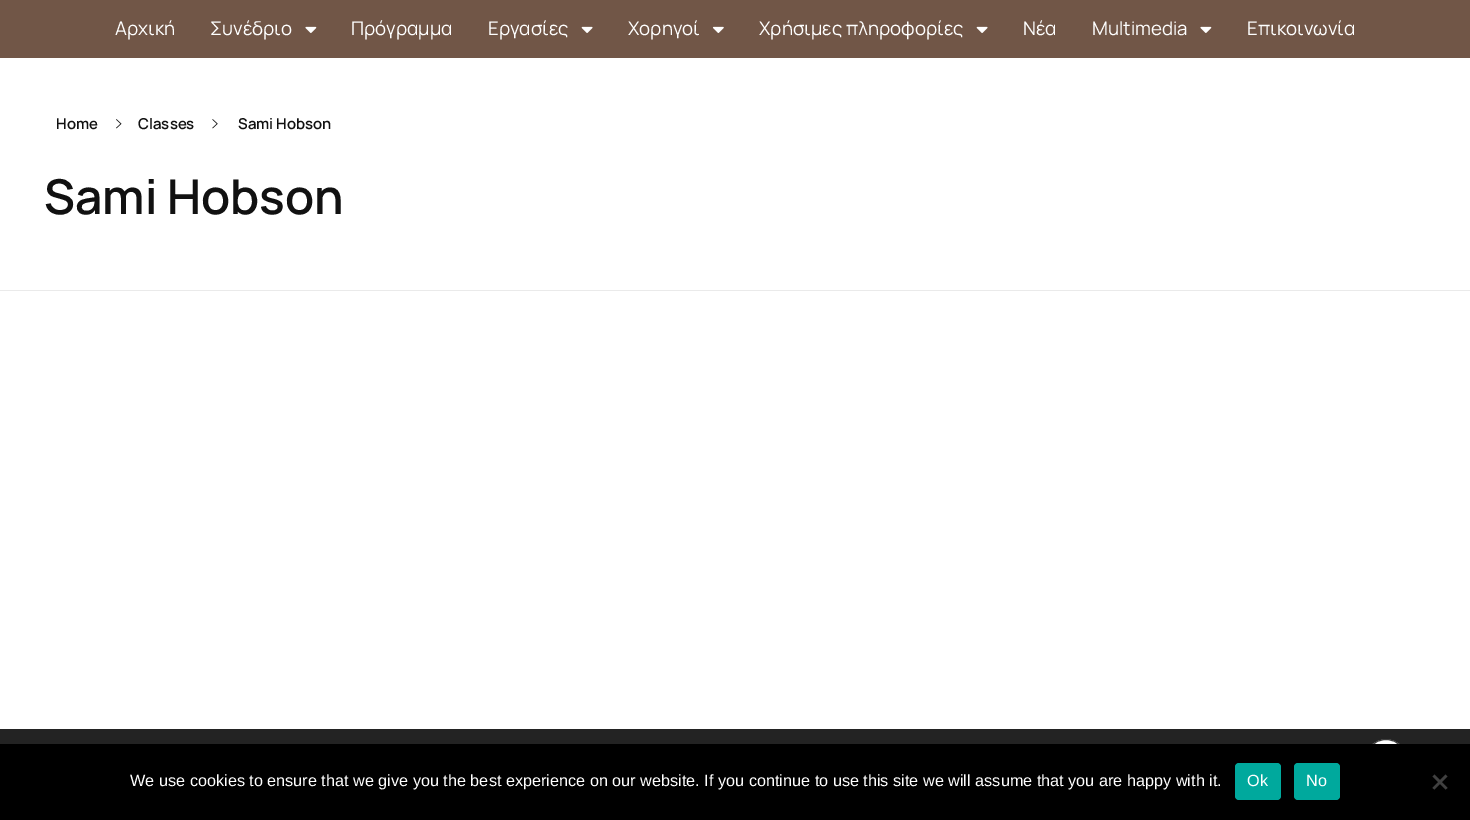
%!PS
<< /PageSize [1470 820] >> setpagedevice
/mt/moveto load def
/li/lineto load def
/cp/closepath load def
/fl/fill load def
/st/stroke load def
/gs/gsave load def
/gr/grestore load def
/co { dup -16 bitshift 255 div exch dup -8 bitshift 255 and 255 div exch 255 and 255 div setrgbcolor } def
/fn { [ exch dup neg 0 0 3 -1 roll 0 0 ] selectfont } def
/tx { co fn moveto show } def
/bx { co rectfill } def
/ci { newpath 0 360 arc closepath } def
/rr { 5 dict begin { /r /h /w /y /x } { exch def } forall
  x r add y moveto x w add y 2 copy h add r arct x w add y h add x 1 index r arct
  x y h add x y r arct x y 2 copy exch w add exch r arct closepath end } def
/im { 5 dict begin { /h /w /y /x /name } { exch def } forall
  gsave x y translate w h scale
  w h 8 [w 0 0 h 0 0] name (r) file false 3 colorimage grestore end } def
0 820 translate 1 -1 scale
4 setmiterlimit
0 0 1470 820 16#FFFFFF bx
0 0 1470 58 16#715647 bx
(media/1.raw) 305 26 12 7 im
(media/2.raw) 581 26 12 7 im
(media/3.raw) 712 26 12 7 im
(media/2.raw) 976 26 12 7 im
(media/1.raw) 1200 26 12 7 im
0 290 1470 1 16#EAEAEA bx
(media/4.raw) 116 119 6 10 im
(media/5.raw) 212 119 6 10 im
0 729 1470 15 16#232323 bx
16#FFFFFF co
1386 761 21.5 ci gs fl gr
16#3D3D3D co
st
0 744 1470 76 16#000000 bx
16#00A99D co
1235 763 46 37 4 rr fl
1294 763 46 37 4 rr fl
16#404040 co
1445.5 774.5 mt 1447.5 776.5 li 1434.5 789.5 li 1432.5 788 li cp fl
1432.5 776.5 mt 1434.5 774.5 li 1447.5 788 li 1445.5 789.5 li cp fl
(Αρχική) 115 35 /Manrope-Regular 18.75 16#FFFFFF tx
(Συνέδριο) 210 35 /Manrope-Regular 18.75 16#FFFFFF tx
(Πρόγραμμα) 351 35 /Manrope-Regular 18.75 16#FFFFFF tx
(Εργασίες) 488 35 /Manrope-Regular 18.75 16#FFFFFF tx
(Χορηγοί) 628 35 /Manrope-Regular 18.75 16#FFFFFF tx
(Χρήσιμες πληροφορίες) 759 35 /Manrope-Regular 18.75 16#FFFFFF tx
(Νέα) 1023 35 /Manrope-Regular 18.75 16#FFFFFF tx
(Multimedia) 1092 35 /Manrope-Regular 18.75 16#FFFFFF tx
(Επικοινωνία) 1247 35 /Manrope-Regular 18.75 16#FFFFFF tx
(Home) 56 129 /Manrope-SemiBold 15 16#111111 tx
(Classes) 138 129 /Manrope-SemiBold 15 16#111111 tx
(Sami Hobson) 238 129 /Manrope-SemiBold 15 16#111111 tx
(Sami Hobson) 44 214 /Manrope-SemiBold 48 16#111111 tx
(We use cookies to ensure that we give you the best experience on our website. If you continue to use this site we will assume that you are happy with it.) 130 786 /LiberationSans-Regular 16.25 16#FFFFFF tx
(Ok) 1247 786 /LiberationSans-Regular 16.25 16#FFFFFF tx
(No) 1306 786 /LiberationSans-Regular 16.25 16#FFFFFF tx
showpage
